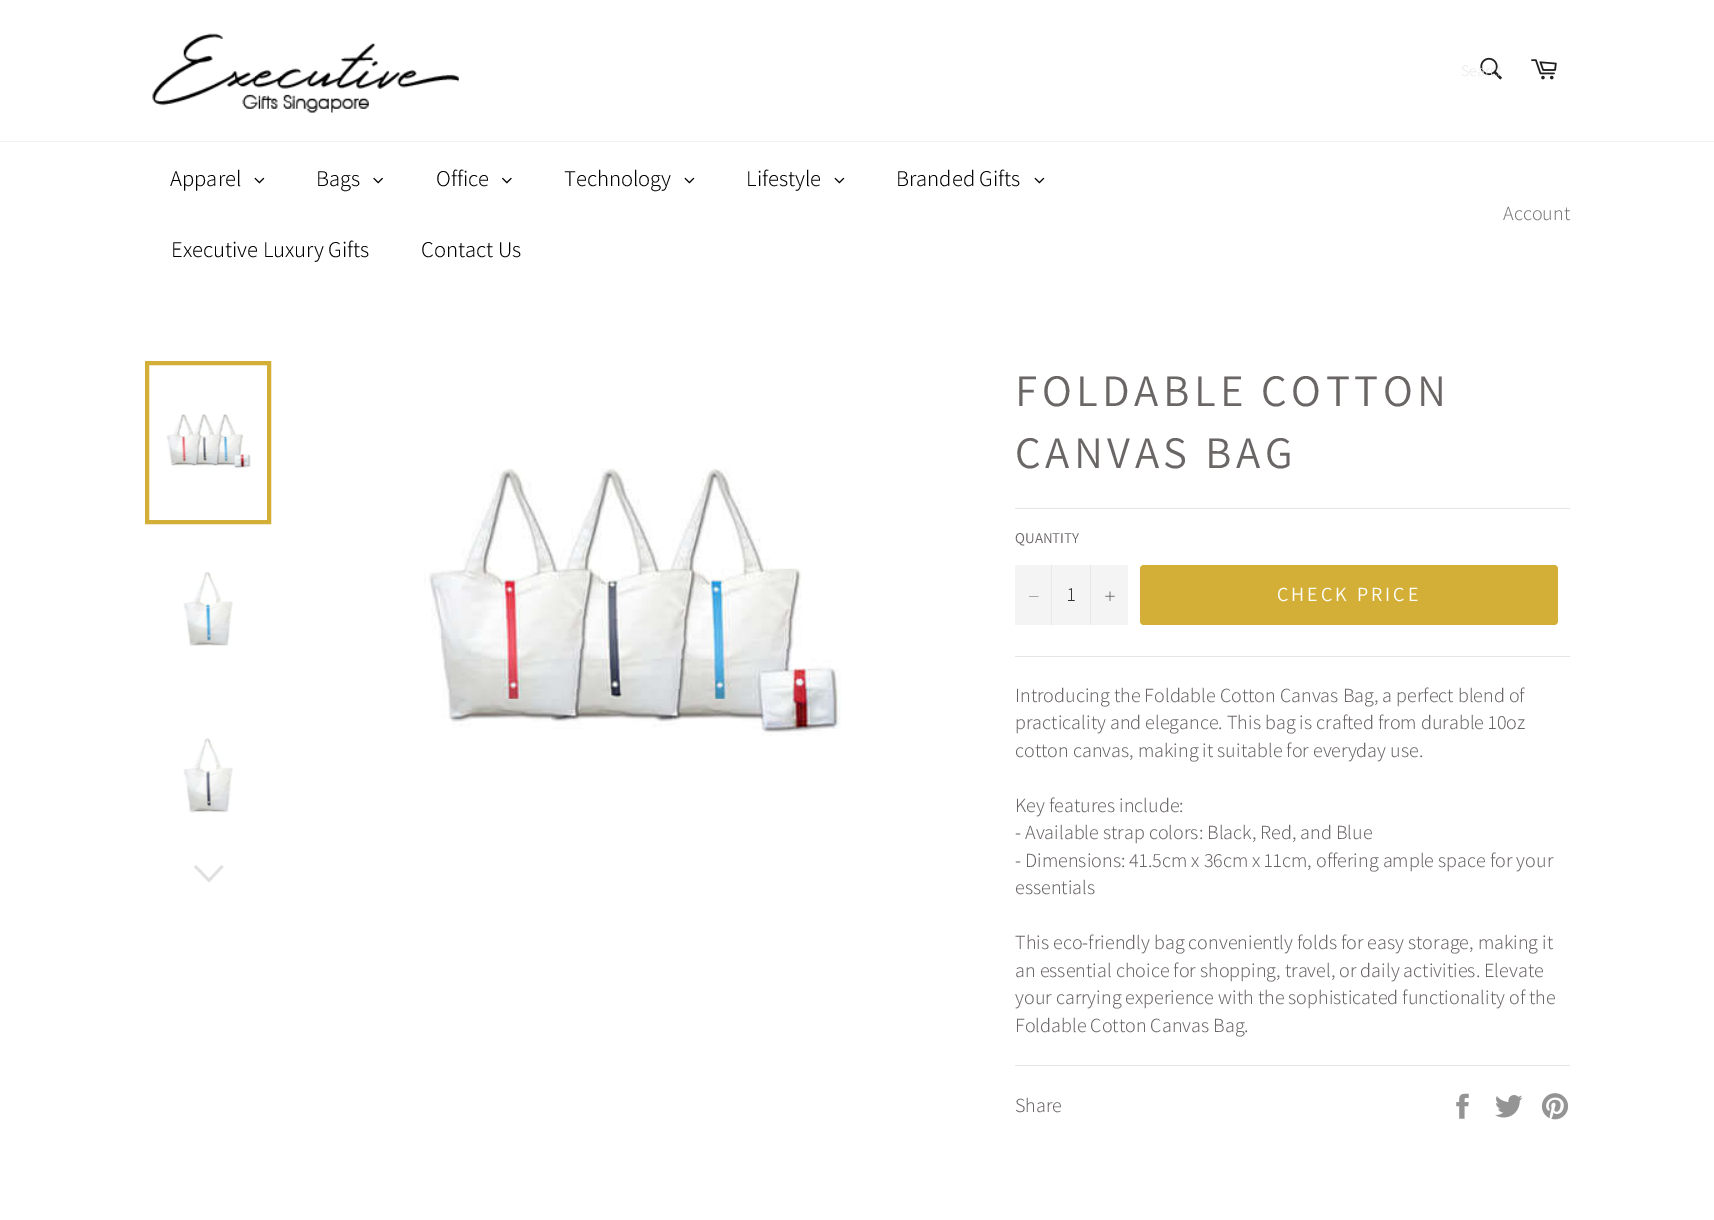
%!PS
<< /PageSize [1714 1220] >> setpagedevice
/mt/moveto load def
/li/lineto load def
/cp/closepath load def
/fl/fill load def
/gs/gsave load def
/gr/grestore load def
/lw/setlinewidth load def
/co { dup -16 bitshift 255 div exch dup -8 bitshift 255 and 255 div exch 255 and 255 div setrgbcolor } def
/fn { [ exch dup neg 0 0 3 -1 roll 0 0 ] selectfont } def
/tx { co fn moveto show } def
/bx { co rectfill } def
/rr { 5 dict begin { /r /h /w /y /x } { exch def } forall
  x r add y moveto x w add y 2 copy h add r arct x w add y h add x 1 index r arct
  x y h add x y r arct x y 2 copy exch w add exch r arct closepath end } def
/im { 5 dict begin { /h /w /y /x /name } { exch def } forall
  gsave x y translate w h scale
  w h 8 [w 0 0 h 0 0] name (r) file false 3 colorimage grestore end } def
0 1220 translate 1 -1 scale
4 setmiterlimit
0 0 1714 1220 16#FFFFFF bx
(media/1.raw) 152 33 307 80 im
(media/2.raw) 1480 57 22 23 im
(media/3.raw) 1531 59 26 21 im
0 141 1714 1 16#F2F2F2 bx
(media/4.raw) 254 177 11 7 im
(media/5.raw) 373 177 10 7 im
(media/6.raw) 502 177 10 7 im
(media/4.raw) 684 177 11 7 im
(media/4.raw) 834 177 11 7 im
(media/4.raw) 1034 177 11 7 im
(media/7.raw) 166 414 85 55 im
16#D4AF37 co
4 lw
147 363 122 159 rectstroke
(media/8.raw) 183 572 50 74 im
(media/9.raw) 183 738 50 75 im
16#E0E0E0 co
221.5 865 mt 223.5 867 li 209 882.5 li 194 867 li 196 865 li 209 878.5 li cp fl
(media/10.raw) 424 468 417 268 im
1015 508 555 1 16#E6E5E5 bx
1015 565 113 60 16#F4F4F4 bx
1051 565 1 60 16#E7E7E7 bx
16#666666 co
1038.5 596 mt 1038.5 596.5 li 1029 596.5 li 1029 596 li cp eofill
1090 565 1 60 16#E7E7E7 bx
(media/11.raw) 1105 591 10 10 im
16#D4AF37 co
1140 565 418 60 4 rr fl
1015 656 555 1 16#E6E5E5 bx
1015 1065 555 1 16#E6E5E5 bx
(media/12.raw) 1456 1093 13 26 im
(media/13.raw) 1495 1095 28 23 im
(media/14.raw) 1541 1093 28 27 im
gs
1461 60 40 21 rectclip
(Search) 1461 76 /Assistant-Light 16 16#E8E8E8 tx
gr
(Apparel) 170 186 /Assistant-Light 22.5 16#000000 tx
(Bags) 316 186 /Assistant-Light 22.5 16#000000 tx
(Office) 436 186 /Assistant-Light 22.5 16#000000 tx
(Technology) 564 186 /Assistant-Light 22.5 16#000000 tx
(Lifestyle) 746 186 /Assistant-Light 22.5 16#000000 tx
(Branded Gifts) 896 186 /Assistant-Light 22.5 16#000000 tx
(Executive Luxury Gifts) 171 257 /Assistant-Light 22.5 16#000000 tx
(Contact Us) 421 257 /Assistant-Light 22.5 16#000000 tx
(Account) 1503 220 /Assistant-Light 20 16#797979 tx
/Assistant-Regular 45 fn
16#6B6666 co
1015 406 mt 4.5 0 (FOLDABLE COTTON) ashow
1015 468 mt 4.5 0 (CANVAS BAG) ashow
(QUANTITY) 1015 543 /Assistant-Regular 15 16#6B6666 tx
(1) 1067 601 /Assistant-Light 20 16#333333 tx
/Assistant-Regular 20 fn
16#FFFFFF co
1277 601 mt 3 0 (CHECK PRICE) ashow
(Introducing the Foldable Cotton Canvas Bag, a perfect blend of) 1015 702 /Assistant-Light 20 16#6B6666 tx
(practicality and elegance. This bag is crafted from durable 10oz) 1015 729 /Assistant-Light 20 16#6B6666 tx
(cotton canvas, making it suitable for everyday use.) 1015 757 /Assistant-Light 20 16#6B6666 tx
(Key features include:) 1015 812 /Assistant-Light 20 16#6B6666 tx
(- Available strap colors: Black, Red, and Blue) 1015 839 /Assistant-Light 20 16#6B6666 tx
(- Dimensions: 41.5cm x 36cm x 11cm, offering ample space for your) 1015 867 /Assistant-Light 20 16#6B6666 tx
(essentials) 1015 894 /Assistant-Light 20 16#6B6666 tx
(This eco-friendly bag conveniently folds for easy storage, making it) 1015 949 /Assistant-Light 20 16#6B6666 tx
(an essential choice for shopping, travel, or daily activities. Elevate) 1015 977 /Assistant-Light 20 16#6B6666 tx
(your carrying experience with the sophisticated functionality of the) 1015 1004 /Assistant-Light 20 16#6B6666 tx
(Foldable Cotton Canvas Bag.) 1015 1032 /Assistant-Light 20 16#6B6666 tx
(Share) 1015 1112 /Assistant-Light 20 16#6B6666 tx
showpage
